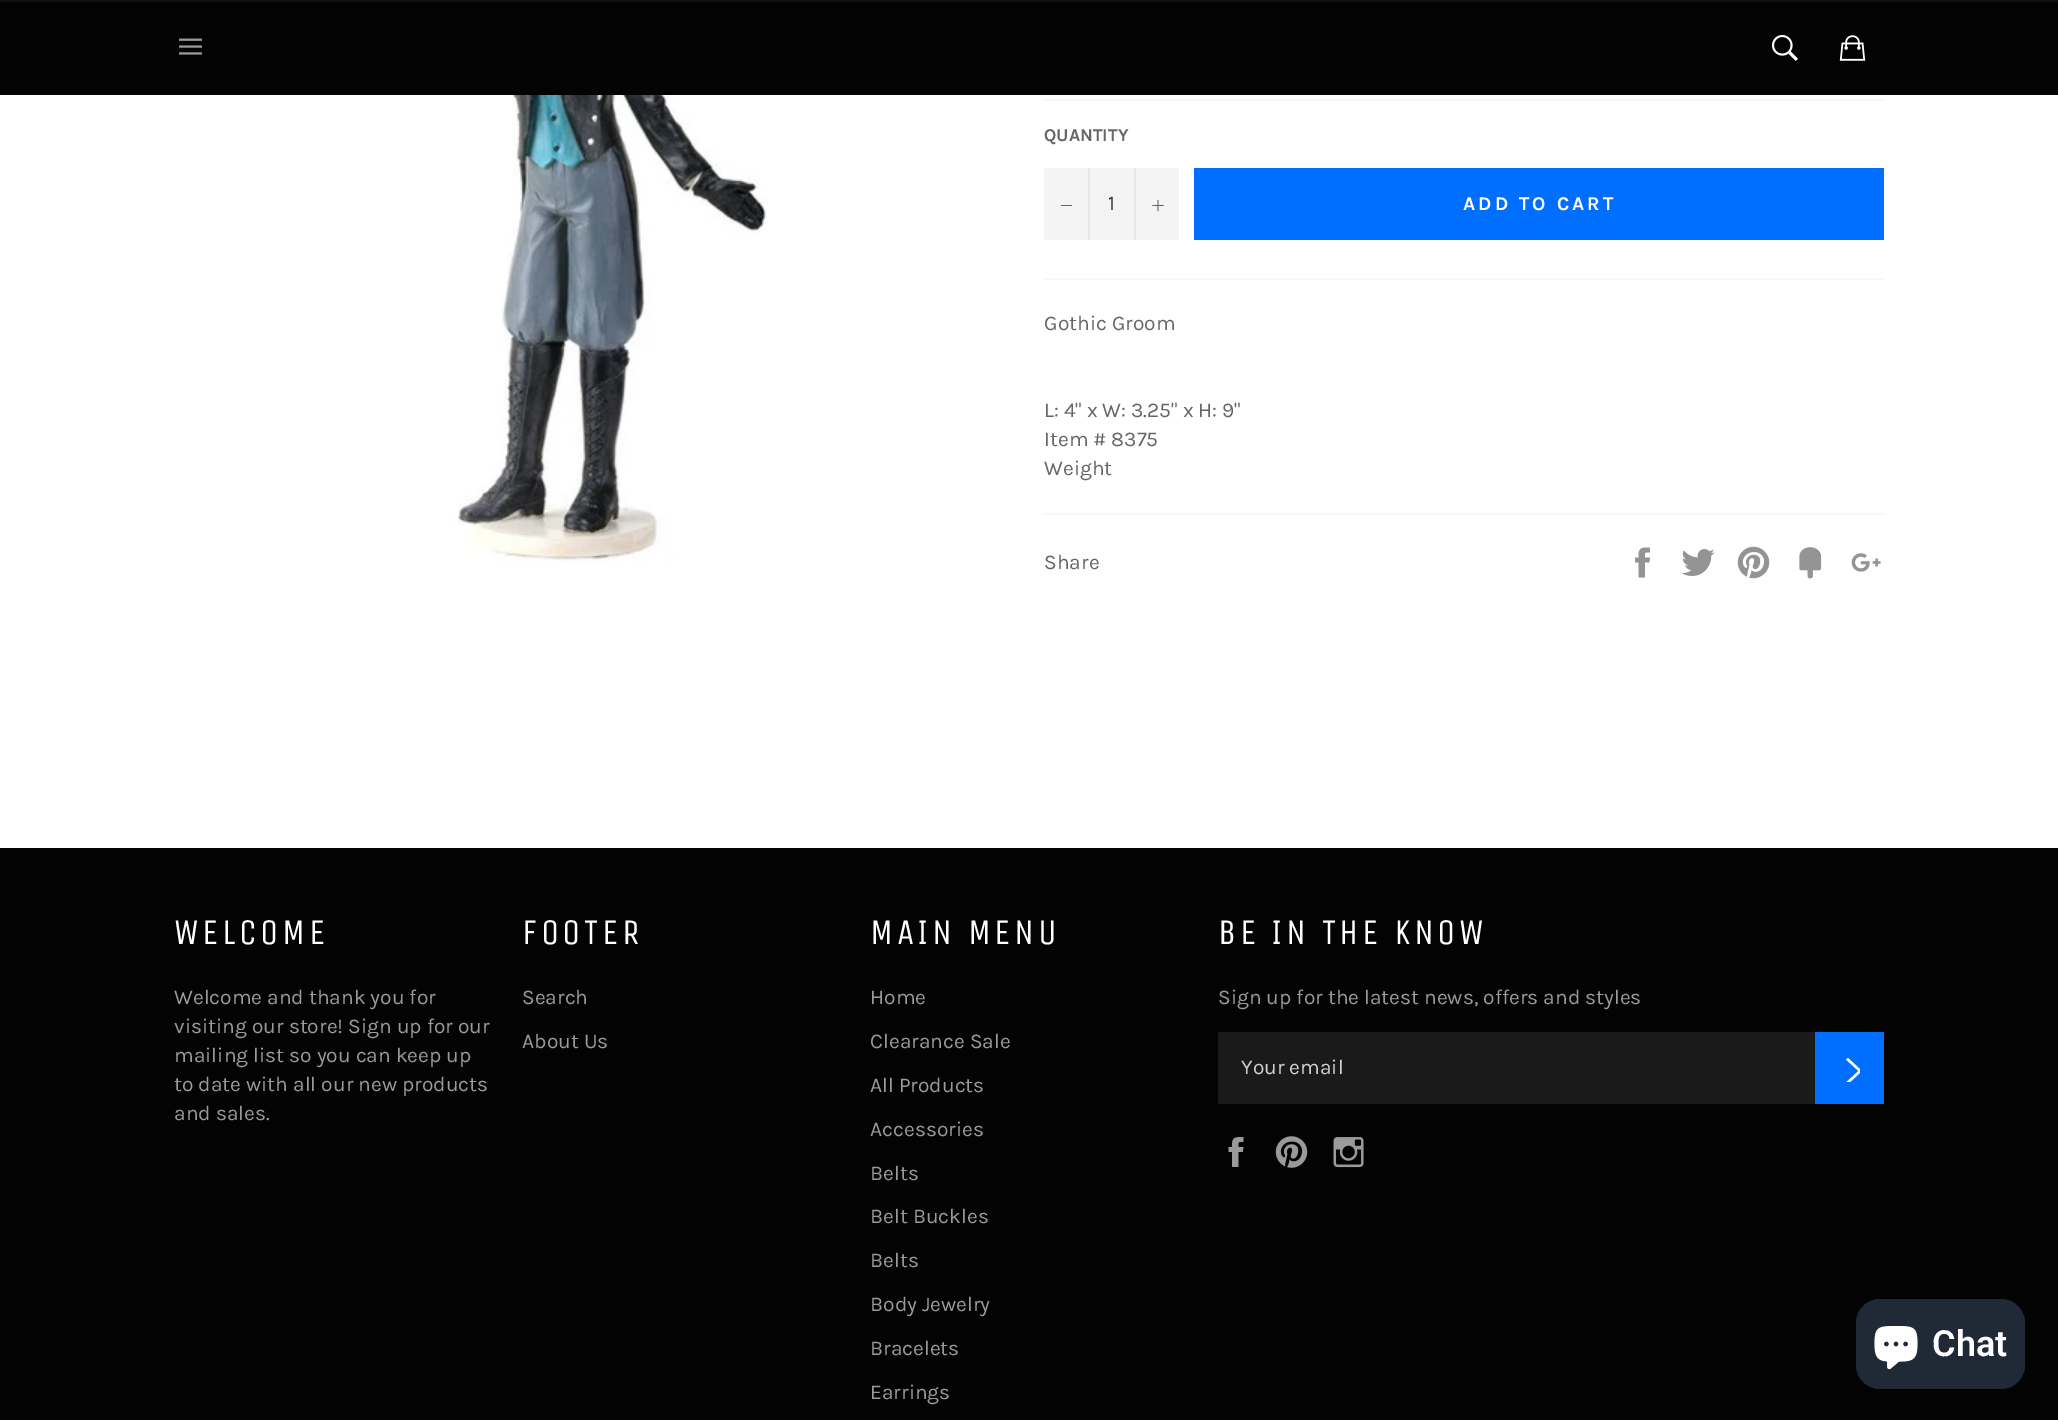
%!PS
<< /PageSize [2058 1420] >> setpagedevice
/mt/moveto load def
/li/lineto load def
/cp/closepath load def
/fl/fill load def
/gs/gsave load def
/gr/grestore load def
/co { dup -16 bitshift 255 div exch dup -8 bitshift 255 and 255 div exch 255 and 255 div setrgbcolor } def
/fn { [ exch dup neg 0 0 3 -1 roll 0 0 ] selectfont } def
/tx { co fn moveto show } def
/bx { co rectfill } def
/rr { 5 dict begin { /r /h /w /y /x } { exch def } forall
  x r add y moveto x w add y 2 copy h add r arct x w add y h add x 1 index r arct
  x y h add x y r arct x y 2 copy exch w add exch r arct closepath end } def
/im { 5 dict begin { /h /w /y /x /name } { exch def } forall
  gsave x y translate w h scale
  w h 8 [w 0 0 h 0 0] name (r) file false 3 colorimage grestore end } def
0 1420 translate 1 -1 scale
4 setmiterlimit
0 0 2058 1420 16#FFFFFF bx
0 2 2058 93 16#030303 bx
0 0 2058 2 16#101010 bx
(media/1.raw) 179 38 23 17 im
(media/2.raw) 1771 34 27 27 im
(media/3.raw) 1839 35 27 26 im
(media/4.raw) 423 95 345 467 im
1044 99 840 2 16#F7F7F7 bx
1044 168 135 72 16#F4F4F4 bx
1088 168 2 72 16#E7E7E7 bx
1061 205 11 1 16#666666 bx
1134 168 2 72 16#E7E7E7 bx
(media/5.raw) 1152 200 12 12 im
1194 168 690 72 16#006EFF bx
1044 278 840 2 16#F7F7F7 bx
1044 513 840 2 16#F7F7F7 bx
(media/6.raw) 1635 547 15 31 im
(media/7.raw) 1681 549 34 27 im
(media/8.raw) 1737 546 33 33 im
(media/9.raw) 1799 547 23 32 im
(media/10.raw) 1851 553 30 19 im
0 848 2058 572 16#030303 bx
1218 1032 597 72 16#1A1A1A bx
1815 1032 69 72 16#006EFF bx
gs
1839 1056 21 26 rectclip
16#FFFFFF co
1846 1059.5 mt 1848 1058 li 1862 1071 li 1848 1084 li 1846 1082.5 li 1858.5 1071 li cp fl
gr
(media/11.raw) 1228 1137 16 30 im
(media/12.raw) 1275 1136 33 32 im
(media/13.raw) 1333 1137 31 31 im
16#202A36 co
1856 1299 169 90 24 rr fl
(media/14.raw) 1874 1326 44 44 im
(QUANTITY) 1044 141 /Karla-Bold 18 16#666666 tx
(1) 1108 210 /Karla-Regular 21 16#333333 tx
/Karla-Bold 19.5 fn
16#FFFFFF co
1463 210 mt 3 0 (ADD TO CART) ashow
(Gothic Groom) 1044 330 /Karla-Regular 21 16#666666 tx
(L: 4" x W: 3.25" x H: 9") 1044 417 /Karla-Regular 21 16#666666 tx
(Item # 8375) 1044 446 /Karla-Regular 21 16#666666 tx
(Weight) 1044 475 /Karla-Regular 21 16#666666 tx
(Share) 1044 569 /Karla-Regular 21 16#666666 tx
/UnicaOne-Regular 36 fn
16#FFFFFF co
174 944 mt 3.6 0 (WELCOME) ashow
(Welcome and thank you for) 174 1004 /Karla-Regular 21 16#9A9A9A tx
(visiting our store! Sign up for our) 174 1033 /Karla-Regular 21 16#9A9A9A tx
(mailing list so you can keep up) 174 1062 /Karla-Regular 21 16#9A9A9A tx
(to date with all our new products) 174 1091 /Karla-Regular 21 16#9A9A9A tx
(and sales.) 174 1120 /Karla-Regular 21 16#9A9A9A tx
/UnicaOne-Regular 36 fn
16#FFFFFF co
522 944 mt 3.6 0 (FOOTER) ashow
(Search) 522 1004 /Karla-Regular 21 16#9A9A9A tx
(About Us) 522 1048 /Karla-Regular 21 16#9A9A9A tx
/UnicaOne-Regular 36 fn
16#FFFFFF co
870 944 mt 3.6 0 (MAIN MENU) ashow
(Home) 870 1004 /Karla-Regular 21 16#9A9A9A tx
(Clearance Sale) 870 1048 /Karla-Regular 21 16#9A9A9A tx
(All Products) 870 1092 /Karla-Regular 21 16#9A9A9A tx
(Accessories) 870 1136 /Karla-Regular 21 16#9A9A9A tx
(Belts) 870 1180 /Karla-Regular 21 16#9A9A9A tx
(Belt Buckles) 870 1223 /Karla-Regular 21 16#9A9A9A tx
(Belts) 870 1267 /Karla-Regular 21 16#9A9A9A tx
(Body Jewelry) 870 1311 /Karla-Regular 21 16#9A9A9A tx
(Bracelets) 870 1355 /Karla-Regular 21 16#9A9A9A tx
(Earrings) 870 1399 /Karla-Regular 21 16#9A9A9A tx
/UnicaOne-Regular 36 fn
16#FFFFFF co
1218 944 mt 3.6 0 (BE IN THE KNOW) ashow
(Sign up for the latest news, offers and styles) 1218 1004 /Karla-Regular 21 16#9A9A9A tx
(Your email) 1241 1074 /Karla-Regular 21 16#D1D1D1 tx
(Chat) 1932 1356 /Roboto-SemiBold 36 16#FFFFFF tx
showpage
